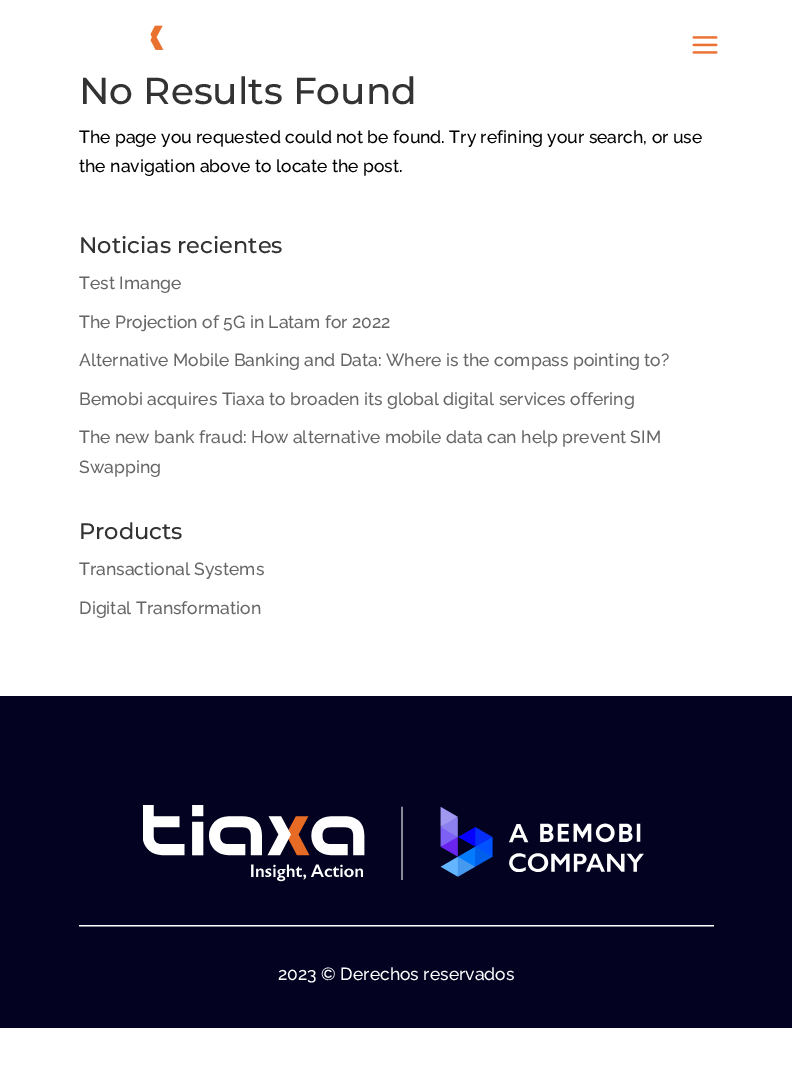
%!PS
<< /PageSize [792 1073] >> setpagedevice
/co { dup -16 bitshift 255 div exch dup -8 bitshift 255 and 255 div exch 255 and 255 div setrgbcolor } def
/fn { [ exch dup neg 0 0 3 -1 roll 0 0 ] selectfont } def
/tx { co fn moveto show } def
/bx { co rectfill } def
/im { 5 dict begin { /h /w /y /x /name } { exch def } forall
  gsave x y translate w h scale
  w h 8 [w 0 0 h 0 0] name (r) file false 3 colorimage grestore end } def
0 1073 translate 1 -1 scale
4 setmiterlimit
0 0 792 1073 16#FFFFFF bx
(media/1.raw) 150 25 14 25 im
(media/2.raw) 692 36 26 18 im
0 696 792 332 16#030321 bx
79 925 635 1 16#FFFFFF bx
(media/3.raw) 143 805 501 77 im
79 926 635 1 16#818190 bx
(No Results Found) 79 104 /Montserrat-Medium 37.5 16#333333 tx
(The page you requested could not be found. Try refining your search, or use) 79 143 /Raleway-Medium 17.5 16#000000 tx
(the navigation above to locate the post.) 79 172 /Raleway-Medium 17.5 16#000000 tx
(Noticias recientes) 79 253 /Montserrat-Medium 22.5 16#333333 tx
(Test Imange) 79 289 /Raleway-Medium 17.5 16#666666 tx
(The Projection of 5G in Latam for 2022) 79 328 /Raleway-Medium 17.5 16#666666 tx
(Alternative Mobile Banking and Data: Where is the compass pointing to?) 79 366 /Raleway-Medium 17.5 16#666666 tx
(Bemobi acquires Tiaxa to broaden its global digital services offering) 79 405 /Raleway-Medium 17.5 16#666666 tx
(The new bank fraud: How alternative mobile data can help prevent SIM) 79 443 /Raleway-Medium 17.5 16#666666 tx
(Swapping) 79 473 /Raleway-Medium 17.5 16#666666 tx
(Products) 79 539 /Montserrat-Medium 22.5 16#333333 tx
(Transactional Systems) 79 575 /Raleway-Medium 17.5 16#666666 tx
(Digital Transformation) 79 614 /Raleway-Medium 17.5 16#666666 tx
(2023 © Derechos reservados) 278 980 /Raleway-Medium 17.5 16#FFFFFF tx
showpage
